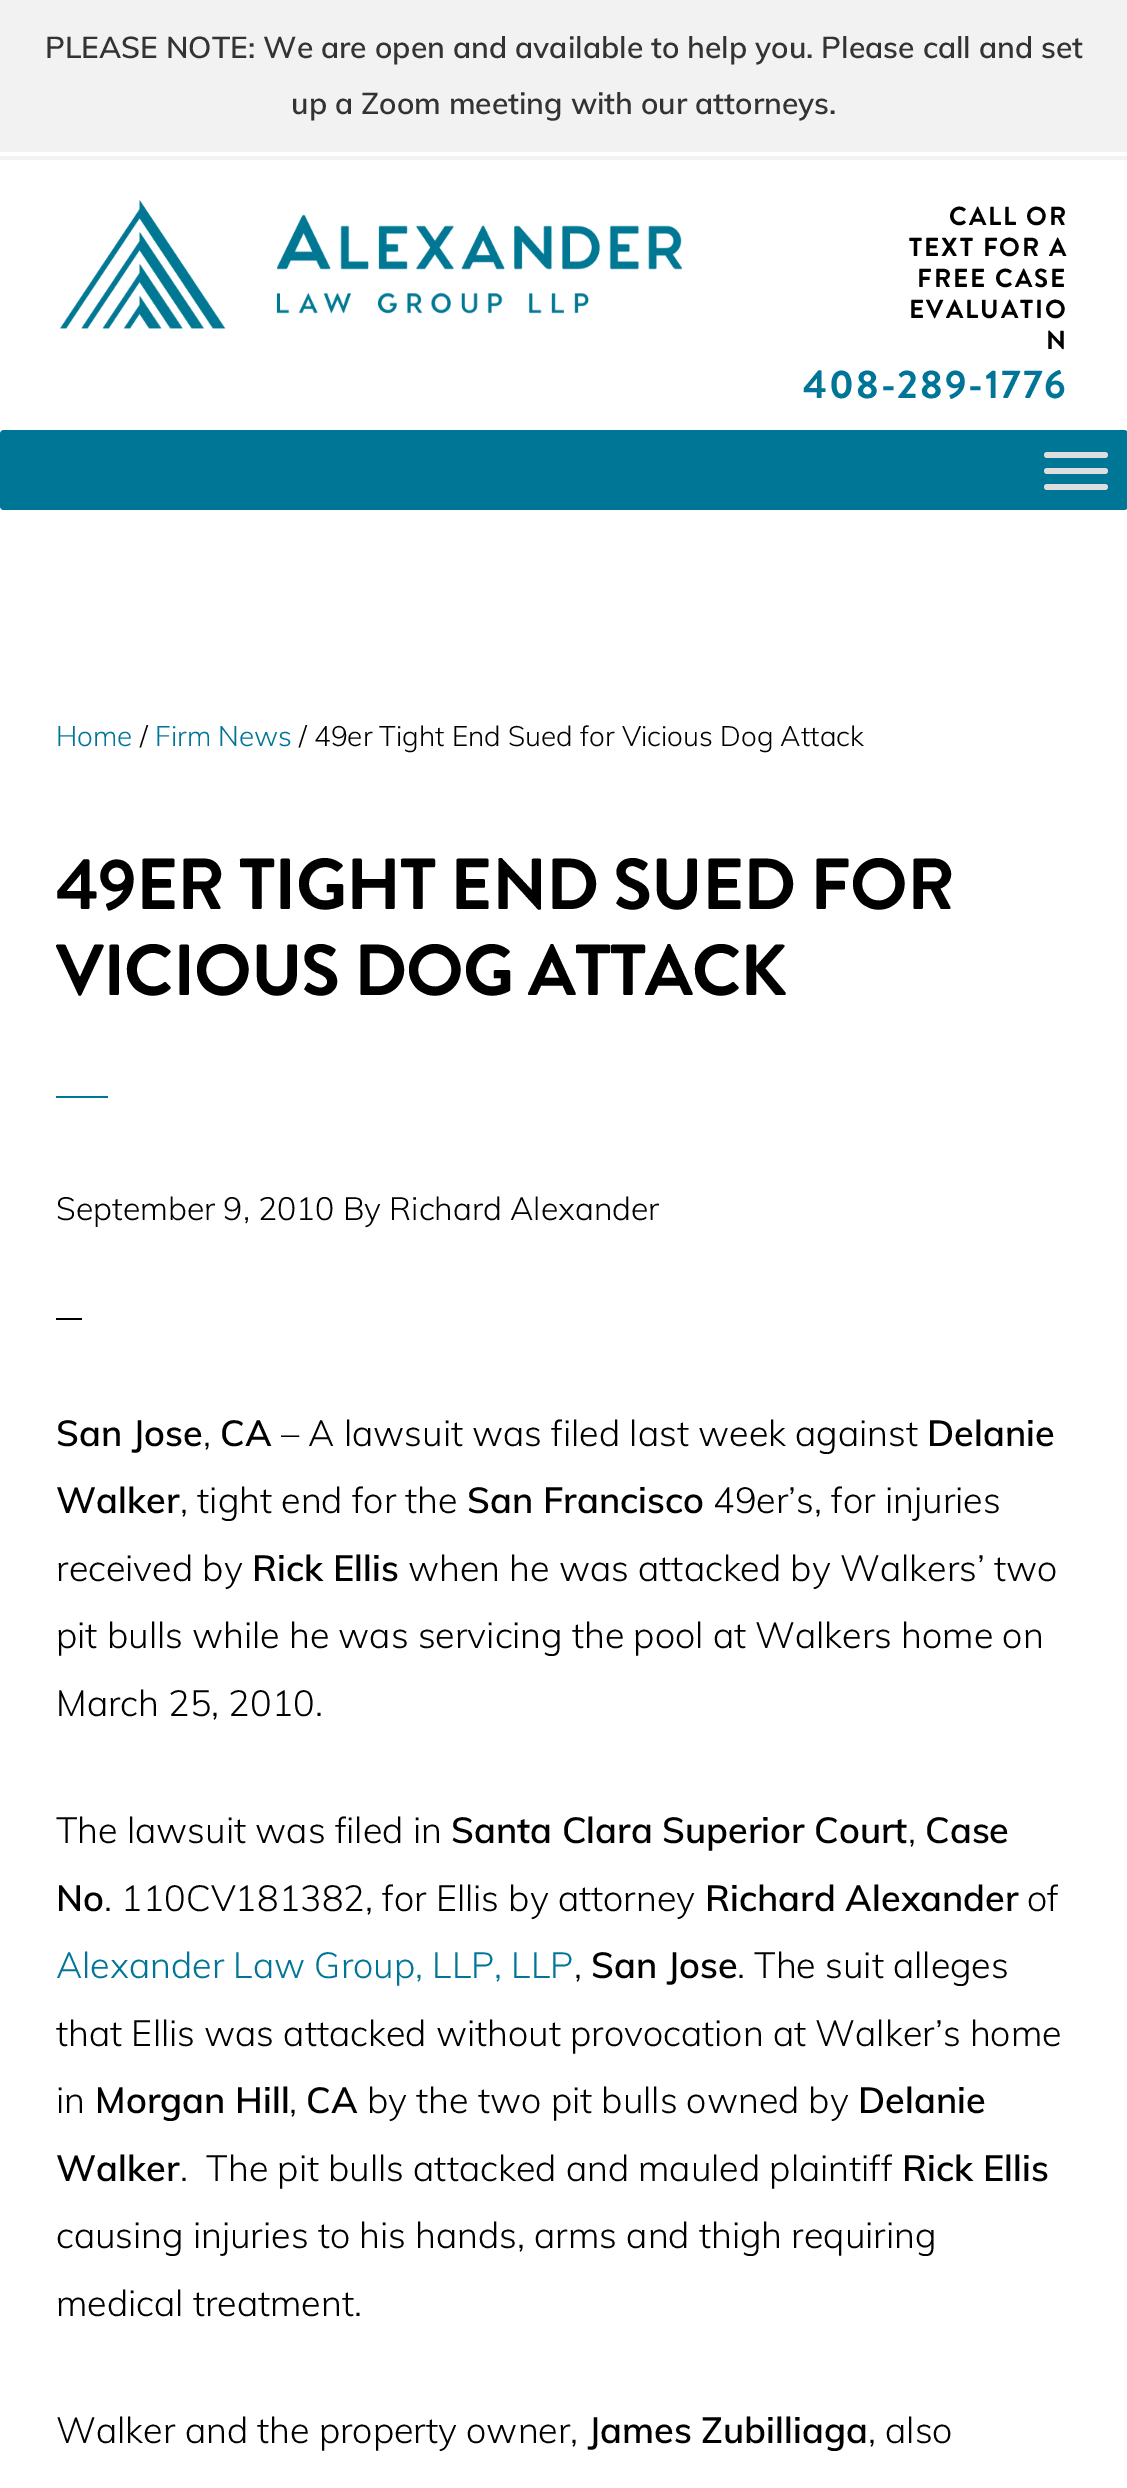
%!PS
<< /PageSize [1127 2488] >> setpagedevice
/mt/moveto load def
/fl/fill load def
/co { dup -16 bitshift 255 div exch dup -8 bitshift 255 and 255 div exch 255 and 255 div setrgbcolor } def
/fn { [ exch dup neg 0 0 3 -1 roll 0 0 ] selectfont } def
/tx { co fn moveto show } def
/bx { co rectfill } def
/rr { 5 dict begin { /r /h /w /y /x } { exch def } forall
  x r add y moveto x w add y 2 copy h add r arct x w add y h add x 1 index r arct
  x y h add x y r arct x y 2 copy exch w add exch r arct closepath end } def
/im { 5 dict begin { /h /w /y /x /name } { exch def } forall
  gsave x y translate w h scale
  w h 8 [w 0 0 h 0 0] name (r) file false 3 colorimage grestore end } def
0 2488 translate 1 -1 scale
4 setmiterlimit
0 0 1127 2488 16#FFFFFF bx
0 0 1127 152 16#F2F2F2 bx
0 156 1127 4 16#F2F2F2 bx
(media/1.raw) 60 200 622 129 im
16#007696 co
0 430 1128 80 4 rr fl
16#DDDDDD co
1044 452 64 6 3 rr fl
1044 468 64 6 3 rr fl
1044 484 64 6 3 rr fl
56 1096 52 2 16#007696 bx
56 1318 26 2 16#000000 bx
(PLEASE NOTE: We are open and available to help you. Please call and set) 45 58 /Muli-SemiBold 30 16#333333 tx
(up a Zoom meeting with our attorneys.) 291 114 /Muli-SemiBold 30 16#333333 tx
/BrandonGrotesque-Bold 26 fn
16#000000 co
949 225 mt 2 0 (CALL OR) ashow
909 256 mt 2 0 (TEXT FOR A) ashow
917 287 mt 2 0 (FREE CASE) ashow
909 318 mt 2 0 (EVALUATIO) ashow
1046 349 mt 2 0 (N) ashow
/BrandonGrotesque-Bold 40 fn
16#007597 co
803 398 mt 2 0 (408-289-1776) ashow
(Home) 56 746 /Muli-Light 28 16#007597 tx
(/) 140 746 /Muli-Light 28 16#000000 tx
(Firm News) 155 746 /Muli-Light 28 16#007597 tx
(/ 49er Tight End Sued for Vicious Dog Attack) 299 746 /Muli-Light 28 16#000000 tx
/BrandonGrotesque-Bold 72 fn
56 909 mt -1 0 (49ER TIGHT END SUED FOR) ashow
56 995 mt -1 0 (VICIOUS DOG ATTACK) ashow
(September 9, 2010 By Richard Alexander) 56 1220 /Muli-Light 32 16#000000 tx
(San Jose) 56 1446 /Muli-SemiBold 36 16#000000 tx
(,) 203 1446 /Muli-Light 36 16#000000 tx
(CA) 220 1446 /Muli-SemiBold 36 16#000000 tx
(– A lawsuit was filed last week against) 281 1446 /Muli-Light 36 16#000000 tx
(Delanie) 927 1446 /Muli-SemiBold 36 16#000000 tx
(Walker) 56 1513 /Muli-SemiBold 36 16#000000 tx
(, tight end for the) 180 1513 /Muli-Light 36 16#000000 tx
(San Francisco) 467 1513 /Muli-SemiBold 36 16#000000 tx
(49er’s, for injuries) 713 1513 /Muli-Light 36 16#000000 tx
(received by) 56 1581 /Muli-Light 36 16#000000 tx
(Rick Ellis) 252 1581 /Muli-SemiBold 36 16#000000 tx
(when he was attacked by Walkers’ two) 408 1581 /Muli-Light 36 16#000000 tx
(pit bulls while he was servicing the pool at Walkers home on) 56 1648 /Muli-Light 36 16#000000 tx
(March 25, 2010.) 56 1716 /Muli-Light 36 16#000000 tx
(The lawsuit was filed in) 56 1843 /Muli-Light 36 16#000000 tx
(Santa Clara Superior Court) 451 1843 /Muli-SemiBold 36 16#000000 tx
(,) 908 1843 /Muli-Light 36 16#000000 tx
(Case) 925 1843 /Muli-SemiBold 36 16#000000 tx
(No) 56 1911 /Muli-SemiBold 36 16#000000 tx
(. 110CV181382, for Ellis by attorney) 104 1911 /Muli-Light 36 16#000000 tx
(Richard Alexander) 705 1911 /Muli-SemiBold 36 16#000000 tx
(of) 1027 1911 /Muli-Light 36 16#000000 tx
(Alexander Law Group, LLP, LLP) 56 1978 /Muli-Light 36 16#007597 tx
(,) 574 1978 /Muli-Light 36 16#000000 tx
(San Jose) 591 1978 /Muli-SemiBold 36 16#000000 tx
(. The suit alleges) 737 1978 /Muli-Light 36 16#000000 tx
(that Ellis was attacked without provocation at Walker’s home) 56 2046 /Muli-Light 36 16#000000 tx
(in) 56 2113 /Muli-Light 36 16#000000 tx
(Morgan Hill) 95 2113 /Muli-SemiBold 36 16#000000 tx
(,) 289 2113 /Muli-Light 36 16#000000 tx
(CA) 306 2113 /Muli-SemiBold 36 16#000000 tx
(by the two pit bulls owned by) 367 2113 /Muli-Light 36 16#000000 tx
(Delanie) 858 2113 /Muli-SemiBold 36 16#000000 tx
(Walker) 56 2181 /Muli-SemiBold 36 16#000000 tx
(.  The pit bulls attacked and mauled plaintiff) 180 2181 /Muli-Light 36 16#000000 tx
(Rick Ellis) 902 2181 /Muli-SemiBold 36 16#000000 tx
(causing injuries to his hands, arms and thigh requiring) 56 2248 /Muli-Light 36 16#000000 tx
(medical treatment.) 56 2316 /Muli-Light 36 16#000000 tx
(Walker and the property owner,) 56 2443 /Muli-Light 36 16#000000 tx
(James Zubilliaga) 588 2443 /Muli-SemiBold 36 16#000000 tx
(, also) 868 2443 /Muli-Light 36 16#000000 tx
showpage
